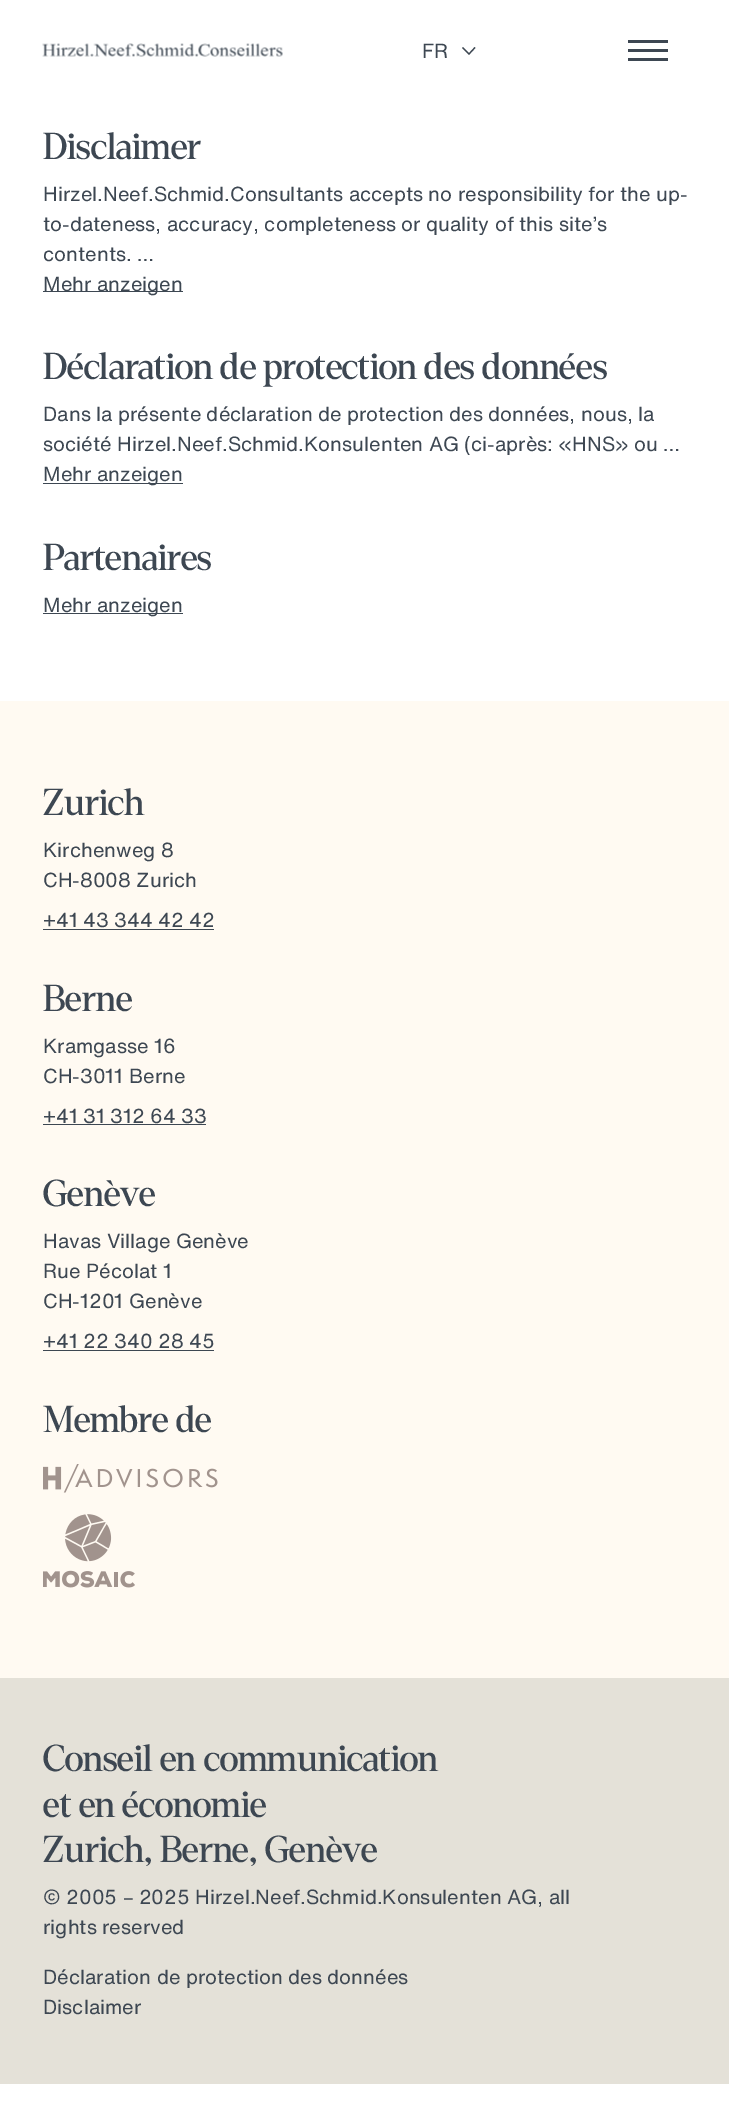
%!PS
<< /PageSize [729 2109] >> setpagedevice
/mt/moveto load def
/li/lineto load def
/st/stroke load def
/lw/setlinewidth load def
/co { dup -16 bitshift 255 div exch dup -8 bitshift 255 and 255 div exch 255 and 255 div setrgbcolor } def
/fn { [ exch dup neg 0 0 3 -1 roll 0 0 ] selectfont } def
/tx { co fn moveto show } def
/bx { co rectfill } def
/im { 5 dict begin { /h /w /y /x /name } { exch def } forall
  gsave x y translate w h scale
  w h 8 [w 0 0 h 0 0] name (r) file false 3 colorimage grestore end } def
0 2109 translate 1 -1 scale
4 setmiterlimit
0 0 729 2109 16#FFFFFF bx
(media/1.raw) 42 43 241 14 im
16#3D4752 co
1.2 lw
462.5 47.5 mt 469 54 li 475 47.5 li st
628 40 40 3 16#3D4752 bx
628 49 40 3 16#3D4752 bx
628 58 40 3 16#3D4752 bx
43 291 140 1 16#3D4752 bx
43 483 140 1 16#3D4752 bx
43 613 140 1 16#3D4752 bx
0 701 729 977 16#FFFAF2 bx
43 929 171 1 16#3D4752 bx
43 1124 163 1 16#3D4752 bx
43 1350 171 1 16#3D4752 bx
(media/2.raw) 43 1464 175 29 im
(media/3.raw) 43 1514 92 74 im
0 1678 729 406 16#E4E1D8 bx
(FR) 422 58 /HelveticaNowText-Regular 20 16#3D4752 tx
(Disclaimer) 43 159 /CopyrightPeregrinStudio-Regular 36.4 16#3D4752 tx
(Hirzel.Neef.Schmid.Consultants accepts no responsibility for the up-) 43 201 /HelveticaNowText-Regular 20 16#3D4752 tx
(to-dateness, accuracy, completeness or quality of this site’s) 43 231 /HelveticaNowText-Regular 20 16#3D4752 tx
(contents. …) 43 261 /HelveticaNowText-Regular 20 16#3D4752 tx
(Mehr anzeigen) 43 291 /HelveticaNowText-Regular 20 16#3D4752 tx
(Déclaration de protection des données) 43 379 /CopyrightPeregrinStudio-Regular 36.4 16#3D4752 tx
(Dans la présente déclaration de protection des données, nous, la) 43 421 /HelveticaNowText-Regular 20 16#3D4752 tx
(société Hirzel.Neef.Schmid.Konsulenten AG \(ci-après: «HNS» ou …) 43 451 /HelveticaNowText-Regular 20 16#3D4752 tx
(Mehr anzeigen) 43 481 /HelveticaNowText-Regular 20 16#3D4752 tx
(Partenaires) 43 570 /CopyrightPeregrinStudio-Regular 36.4 16#3D4752 tx
(Mehr anzeigen) 43 612 /HelveticaNowText-Regular 20 16#3D4752 tx
(Zurich) 43 815 /CopyrightPeregrinStudio-Regular 36.4 16#3D4752 tx
(Kirchenweg 8) 43 857 /HelveticaNowText-Regular 20 16#3D4752 tx
(CH-8008 Zurich) 43 887 /HelveticaNowText-Regular 20 16#3D4752 tx
(+41 43 344 42 42) 43 927 /HelveticaNowText-Regular 20 16#3D4752 tx
(Berne) 43 1011 /CopyrightPeregrinStudio-Regular 36.4 16#3D4752 tx
(Kramgasse 16) 43 1053 /HelveticaNowText-Regular 20 16#3D4752 tx
(CH-3011 Berne) 43 1083 /HelveticaNowText-Regular 20 16#3D4752 tx
(+41 31 312 64 33) 43 1123 /HelveticaNowText-Regular 20 16#3D4752 tx
(Genève) 43 1206 /CopyrightPeregrinStudio-Regular 36.4 16#3D4752 tx
(Havas Village Genève) 43 1248 /HelveticaNowText-Regular 20 16#3D4752 tx
(Rue Pécolat 1) 43 1278 /HelveticaNowText-Regular 20 16#3D4752 tx
(CH-1201 Genève) 43 1308 /HelveticaNowText-Regular 20 16#3D4752 tx
(+41 22 340 28 45) 43 1348 /HelveticaNowText-Regular 20 16#3D4752 tx
(Membre de) 43 1432 /CopyrightPeregrinStudio-Regular 36.4 16#3D4752 tx
(Conseil en communication) 43 1771 /CopyrightPeregrinStudio-Regular 36.4 16#3D4752 tx
(et en économie) 43 1817 /CopyrightPeregrinStudio-Regular 36.4 16#3D4752 tx
(Zurich, Berne, Genève) 43 1862 /CopyrightPeregrinStudio-Regular 36.4 16#3D4752 tx
(© 2005 – 2025 Hirzel.Neef.Schmid.Konsulenten AG, all) 43 1904 /HelveticaNowText-Regular 20 16#3D4752 tx
(rights reserved) 43 1934 /HelveticaNowText-Regular 20 16#3D4752 tx
(Déclaration de protection des données) 43 1984 /HelveticaNowText-Regular 20 16#3D4752 tx
(Disclaimer) 43 2014 /HelveticaNowText-Regular 20 16#3D4752 tx
showpage
